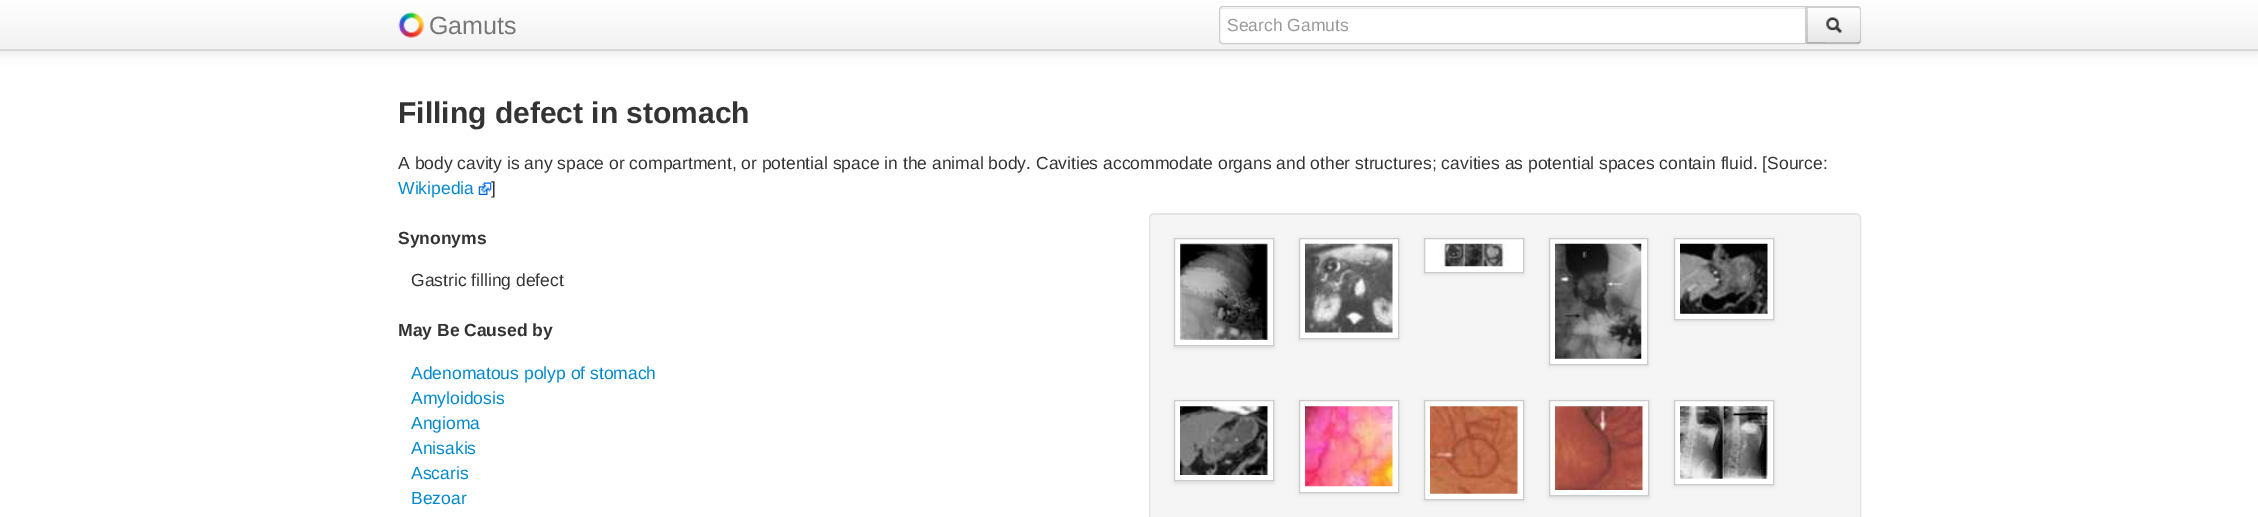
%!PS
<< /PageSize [2258 517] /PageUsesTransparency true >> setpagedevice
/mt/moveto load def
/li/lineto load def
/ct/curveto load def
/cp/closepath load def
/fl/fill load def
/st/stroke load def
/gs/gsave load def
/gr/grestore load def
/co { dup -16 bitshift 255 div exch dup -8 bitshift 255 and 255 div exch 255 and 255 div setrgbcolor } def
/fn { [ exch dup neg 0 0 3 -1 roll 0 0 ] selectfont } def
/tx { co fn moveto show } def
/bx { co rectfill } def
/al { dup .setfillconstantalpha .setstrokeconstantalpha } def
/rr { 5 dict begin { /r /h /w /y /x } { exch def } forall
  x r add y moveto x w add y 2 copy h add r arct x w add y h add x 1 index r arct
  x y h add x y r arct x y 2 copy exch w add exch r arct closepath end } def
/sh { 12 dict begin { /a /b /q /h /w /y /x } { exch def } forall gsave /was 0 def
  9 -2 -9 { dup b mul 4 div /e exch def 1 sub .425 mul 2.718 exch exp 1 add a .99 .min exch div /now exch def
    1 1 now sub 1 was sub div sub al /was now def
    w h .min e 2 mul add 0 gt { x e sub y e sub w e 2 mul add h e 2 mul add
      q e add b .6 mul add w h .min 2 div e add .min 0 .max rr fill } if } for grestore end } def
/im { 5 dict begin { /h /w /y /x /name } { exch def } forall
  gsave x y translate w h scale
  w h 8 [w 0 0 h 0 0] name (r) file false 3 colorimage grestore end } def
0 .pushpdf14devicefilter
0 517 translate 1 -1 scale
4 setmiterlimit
0 0 2258 517 16#FFFFFF bx
16#000000 co
0 1 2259 52 0 6 .1 sh
gs 0 0 mt 2258 0 li 2258 49 li 0 49 li cp clip newpath
<< /ShadingType 2 /ColorSpace /DeviceRGB /Coords [1129 0 1129 50] /Extend [true true] /Function << /FunctionType 2 /Domain [0 1] /C0 [1 1 1] /C1 [.949 .949 .949] /N 1 >> >> shfill gr
0 49 2258 1 16#DADADA bx
0 50 2258 1 16#D4D4D4 bx
(media/1.raw) 398 12 26 26 im
16#000000 co
1806 8 55 37 4 1 .05 sh
16#FFFFFF co
1223 6 mt 1806 6 li 1806 44 li 1223 44 li 1221 44 1219 42 1219 40 ct 1219 10 li 1219 8 1221 6 1223 6 ct cp fl
16#ECECEC co
1222 9 mt 1805 9 li 1805 8 li 1222 8 li 1221 8 1220 9 1220 11 ct 1220 10 1221 9 1222 9 ct cp fl
16#CCCCCC co
1223 6.5 mt 1805.5 6.5 li 1805.5 43.5 li 1223 43.5 li 1221 43.5 1219.5 42 1219.5 40 ct 1219.5 10 li 1219.5 8 1221 6.5 1223 6.5 ct cp st
16#F5F5F5 co
1806 6 mt 1857 6 li 1859 6 1861 8 1861 10 ct 1861 40 li 1861 42 1859 44 1857 44 ct 1806 44 li cp fl
gs
1806 6 mt 1857 6 li 1859 6 1861 8 1861 10 ct 1861 40 li 1861 42 1859 44 1857 44 ct 1806 44 li cp clip newpath
gs 1806 8 mt 1861 8 li 1861 43 li 1806 43 li cp clip newpath
<< /ShadingType 2 /ColorSpace /DeviceRGB /Coords [1834 7.5 1834 43] /Extend [true true] /Function << /FunctionType 2 /Domain [0 1] /C0 [1 1 1] /C1 [.902 .902 .902] /N 1 >> >> shfill gr
gr
0.15 al
16#000000 co
1808 8 mt 1806 6 li 1859 6 li 1860 7 li 1859 8 li 1858 8 li cp fl
1860 7 mt 1861 8 1861 9 1861 10 ct 1861 40 li 1861 41 1861 42 1860 43 ct 1859 41.5 li 1860 40 li 1860 10 li 1859 8.5 li cp fl
0.25 al
1860 43 mt 1859 44 li 1806 44 li 1808 42 li 1814 42 1857 43 1859 42 ct cp fl
0.15 al
1806 44 mt 1808 42 li 1808 8 li 1806 6 li cp fl
1 al
(media/2.raw) 1826 17 17 17 im
(media/3.raw) 478 182 14 13 im
16#F5F5F5 co
1149 213 712 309 5 rr fl
16#E9E9E9 co
1154 215 mt 1856 215 li 1858 215 1860 217 1860 219 ct 1860 216 1859 214 1856 214 ct 1154 214 li 1151 215 li 1150 216 li 1150 219 li 1150 217 1152 215 1154 215 ct cp fl
16#E3E3E3 co
1149.5 213.5 711 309 4.5 rr st
16#000000 co
1174 239 100 109 0 2 .1 sh
16#FFFFFF co
1174.5 238.5 mt 1273.5 238.5 li 1273.5 345.5 li 1174.5 345.5 li cp gs fl gr
16#CCCCCC co
st
(media/4.raw) 1180 243 88 97 im
16#000000 co
1299 239 100 101 0 2 .1 sh
16#FFFFFF co
1299.5 238.5 mt 1398.5 238.5 li 1398.5 338.5 li 1299.5 338.5 li cp gs fl gr
16#CCCCCC co
st
(media/5.raw) 1305 243 88 90 im
16#000000 co
1424 239 100 35 0 2 .1 sh
16#FFFFFF co
1424.5 238.5 mt 1523.5 238.5 li 1523.5 272.5 li 1424.5 272.5 li cp gs fl gr
16#CCCCCC co
st
(media/6.raw) 1439 243 70 24 im
16#000000 co
1549 239 99 127 0 2 .1 sh
16#FFFFFF co
1549.5 238.5 mt 1647.5 238.5 li 1647.5 364.5 li 1549.5 364.5 li cp gs fl gr
16#CCCCCC co
st
(media/7.raw) 1555 243 87 116 im
16#000000 co
1674 239 100 82 0 2 .1 sh
16#FFFFFF co
1674.5 238.5 mt 1773.5 238.5 li 1773.5 319.5 li 1674.5 319.5 li cp gs fl gr
16#CCCCCC co
st
(media/8.raw) 1680 243 88 71 im
16#000000 co
1174 401 100 82 0 2 .1 sh
16#FFFFFF co
1174.5 400.5 mt 1273.5 400.5 li 1273.5 480.5 li 1174.5 480.5 li cp gs fl gr
16#CCCCCC co
st
(media/9.raw) 1180 406 88 69 im
16#000000 co
1299 401 100 93 0 2 .1 sh
16#FFFFFF co
1299.5 400.5 mt 1398.5 400.5 li 1398.5 492.5 li 1299.5 492.5 li cp gs fl gr
16#CCCCCC co
st
(media/10.raw) 1305 406 88 81 im
16#000000 co
1424 401 100 100 0 2 .1 sh
16#FFFFFF co
1424.5 400.5 mt 1523.5 400.5 li 1523.5 499.5 li 1424.5 499.5 li cp gs fl gr
16#CCCCCC co
st
(media/11.raw) 1430 406 88 88 im
16#000000 co
1549 401 100 97 0 2 .1 sh
16#FFFFFF co
1549.5 400.5 mt 1648.5 400.5 li 1648.5 495.5 li 1549.5 495.5 li cp gs fl gr
16#CCCCCC co
st
(media/12.raw) 1555 406 88 84 im
16#000000 co
1674 401 100 85 0 2 .1 sh
16#FFFFFF co
1674.5 400.5 mt 1773.5 400.5 li 1773.5 484.5 li 1674.5 484.5 li cp gs fl gr
16#CCCCCC co
st
(media/13.raw) 1680 406 88 73 im
(Gamuts) 429 34 /LiberationSans-Regular 25 16#777777 tx
(Search Gamuts) 1227 31 /LiberationSans-Regular 17.5 16#999999 tx
(Filling defect in stomach) 398 123 /LiberationSans-Bold 30 16#333333 tx
(A body cavity is any space or compartment, or potential space in the animal body. Cavities accommodate organs and other structures; cavities as potential spaces contain fluid. [Source:) 398 169 /LiberationSans-Regular 17.5 16#333333 tx
(Wikipedia) 398 194 /LiberationSans-Regular 17.5 16#0088CC tx
(]) 491 194 /LiberationSans-Regular 17.5 16#333333 tx
(Synonyms) 398 244 /LiberationSans-Bold 17.5 16#333333 tx
(Gastric filling defect) 411 286 /LiberationSans-Regular 17.5 16#333333 tx
(May Be Caused by) 398 336 /LiberationSans-Bold 17.5 16#333333 tx
(Adenomatous polyp of stomach) 411 379 /LiberationSans-Regular 17.5 16#0088CC tx
(Amyloidosis) 411 404 /LiberationSans-Regular 17.5 16#0088CC tx
(Angioma) 411 429 /LiberationSans-Regular 17.5 16#0088CC tx
(Anisakis) 411 454 /LiberationSans-Regular 17.5 16#0088CC tx
(Ascaris) 411 479 /LiberationSans-Regular 17.5 16#0088CC tx
(Bezoar) 411 504 /LiberationSans-Regular 17.5 16#0088CC tx
.poppdf14devicefilter showpage
